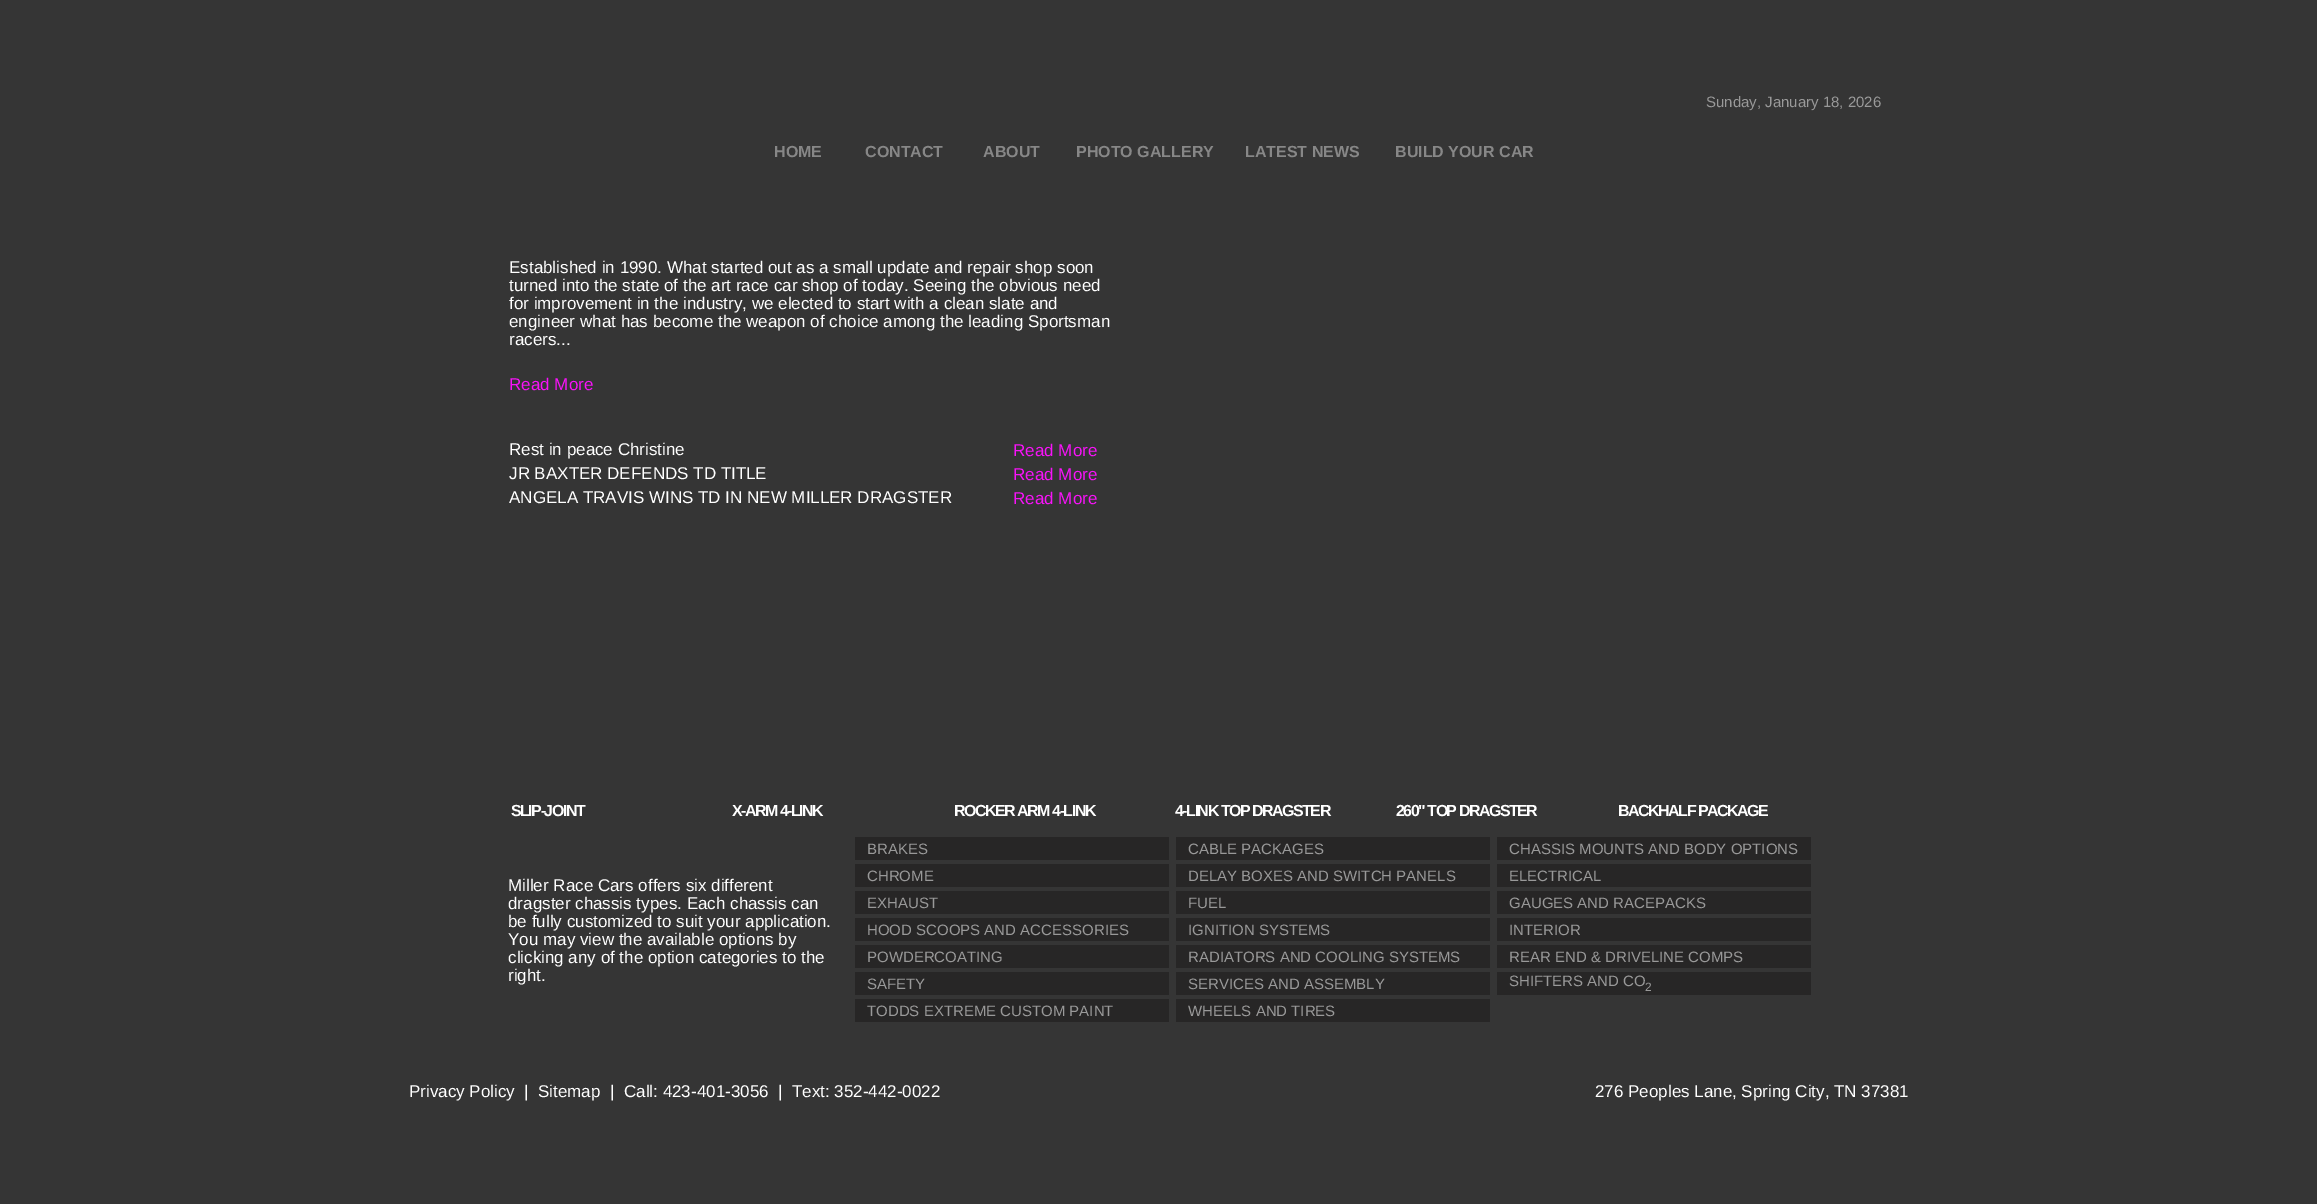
%!PS
<< /PageSize [2317 1204] >> setpagedevice
/mt/moveto load def
/co { dup -16 bitshift 255 div exch dup -8 bitshift 255 and 255 div exch 255 and 255 div setrgbcolor } def
/fn { [ exch dup neg 0 0 3 -1 roll 0 0 ] selectfont } def
/tx { co fn moveto show } def
/bx { co rectfill } def
0 1204 translate 1 -1 scale
4 setmiterlimit
0 0 2317 1204 16#353535 bx
855 837 314 23 16#272626 bx
1176 837 314 23 16#272626 bx
1497 837 314 23 16#272626 bx
855 864 314 23 16#272626 bx
1176 864 314 23 16#272626 bx
1497 864 314 23 16#272626 bx
855 891 314 23 16#272626 bx
1176 891 314 23 16#272626 bx
1497 891 314 23 16#272626 bx
855 918 314 23 16#272626 bx
1176 918 314 23 16#272626 bx
1497 918 314 23 16#272626 bx
855 945 314 23 16#272626 bx
1176 945 314 23 16#272626 bx
1497 945 314 23 16#272626 bx
855 972 314 23 16#272626 bx
1176 972 314 23 16#272626 bx
1497 972 314 23 16#272626 bx
855 999 314 23 16#272626 bx
1176 999 314 23 16#272626 bx
(Sunday, January 18, 2026) 1706 107 /LiberationSans-Regular 15 16#999999 tx
(HOME) 774 157 /LiberationSans-Bold 16 16#878787 tx
(CONTACT) 865 157 /LiberationSans-Bold 16 16#878787 tx
(ABOUT) 983 157 /LiberationSans-Bold 16 16#878787 tx
(PHOTO GALLERY) 1076 157 /LiberationSans-Bold 16 16#878787 tx
(LATEST NEWS) 1245 157 /LiberationSans-Bold 16 16#878787 tx
(BUILD YOUR CAR) 1395 157 /LiberationSans-Bold 16 16#878787 tx
(Established in 1990. What started out as a small update and repair shop soon) 509 273 /LiberationSans-Regular 17 16#FFFFFF tx
(turned into the state of the art race car shop of today. Seeing the obvious need) 509 291 /LiberationSans-Regular 17 16#FFFFFF tx
(for improvement in the industry, we elected to start with a clean slate and) 509 309 /LiberationSans-Regular 17 16#FFFFFF tx
(engineer what has become the weapon of choice among the leading Sportsman) 509 327 /LiberationSans-Regular 17 16#FFFFFF tx
(racers...) 509 345 /LiberationSans-Regular 17 16#FFFFFF tx
(Read More) 509 390 /LiberationSans-Regular 17 16#F813F9 tx
(Rest in peace Christine) 509 455 /LiberationSans-Regular 17 16#FFFFFF tx
(Read More) 1013 456 /LiberationSans-Regular 17 16#F813F9 tx
(JR BAXTER DEFENDS TD TITLE) 509 479 /LiberationSans-Regular 17 16#FFFFFF tx
(Read More) 1013 480 /LiberationSans-Regular 17 16#F813F9 tx
(ANGELA TRAVIS WINS TD IN NEW MILLER DRAGSTER) 509 503 /LiberationSans-Regular 17 16#FFFFFF tx
(Read More) 1013 504 /LiberationSans-Regular 17 16#F813F9 tx
/LiberationSans-Bold 16 fn
16#FFFFFF co
511 816 mt -1.5 0 (SLIP-JOINT) ashow
732 816 mt -1.5 0 (X-ARM 4-LINK) ashow
954 816 mt -1.5 0 (ROCKER ARM 4-LINK) ashow
1175 816 mt -1.5 0 (4-LINK TOP DRAGSTER) ashow
1396 816 mt -1.5 0 (260" TOP DRAGSTER) ashow
1618 816 mt -1.5 0 (BACKHALF PACKAGE) ashow
(BRAKES) 867 854 /LiberationSans-Regular 15 16#999999 tx
(CABLE PACKAGES) 1188 854 /LiberationSans-Regular 15 16#999999 tx
(CHASSIS MOUNTS AND BODY OPTIONS) 1509 854 /LiberationSans-Regular 15 16#999999 tx
(Miller Race Cars offers six different) 508 891 /LiberationSans-Regular 17 16#FFFFFF tx
(dragster chassis types. Each chassis can) 508 909 /LiberationSans-Regular 17 16#FFFFFF tx
(be fully customized to suit your application.) 508 927 /LiberationSans-Regular 17 16#FFFFFF tx
(You may view the available options by) 508 945 /LiberationSans-Regular 17 16#FFFFFF tx
(clicking any of the option categories to the) 508 963 /LiberationSans-Regular 17 16#FFFFFF tx
(right.) 508 981 /LiberationSans-Regular 17 16#FFFFFF tx
(CHROME) 867 881 /LiberationSans-Regular 15 16#999999 tx
(DELAY BOXES AND SWITCH PANELS) 1188 881 /LiberationSans-Regular 15 16#999999 tx
(ELECTRICAL) 1509 881 /LiberationSans-Regular 15 16#999999 tx
(EXHAUST) 867 908 /LiberationSans-Regular 15 16#999999 tx
(FUEL) 1188 908 /LiberationSans-Regular 15 16#999999 tx
(GAUGES AND RACEPACKS) 1509 908 /LiberationSans-Regular 15 16#999999 tx
(HOOD SCOOPS AND ACCESSORIES) 867 935 /LiberationSans-Regular 15 16#999999 tx
(IGNITION SYSTEMS) 1188 935 /LiberationSans-Regular 15 16#999999 tx
(INTERIOR) 1509 935 /LiberationSans-Regular 15 16#999999 tx
(POWDERCOATING) 867 962 /LiberationSans-Regular 15 16#999999 tx
(RADIATORS AND COOLING SYSTEMS) 1188 962 /LiberationSans-Regular 15 16#999999 tx
(REAR END & DRIVELINE COMPS) 1509 962 /LiberationSans-Regular 15 16#999999 tx
(SAFETY) 867 989 /LiberationSans-Regular 15 16#999999 tx
(SERVICES AND ASSEMBLY) 1188 989 /LiberationSans-Regular 15 16#999999 tx
(SHIFTERS AND CO) 1509 986 /LiberationSans-Regular 15 16#999999 tx
(2) 1645 991 /LiberationSans-Regular 12 16#999999 tx
(TODDS EXTREME CUSTOM PAINT) 867 1016 /LiberationSans-Regular 15 16#999999 tx
(WHEELS AND TIRES) 1188 1016 /LiberationSans-Regular 15 16#999999 tx
(Privacy Policy) 409 1097 /LiberationSans-Regular 17 16#FFFFFF tx
(|) 524 1097 /LiberationSans-Regular 17 16#FFFFFF tx
(Sitemap) 538 1097 /LiberationSans-Regular 17 16#FFFFFF tx
(|  Call: 423-401-3056  |  Text: 352-442-0022) 610 1097 /LiberationSans-Regular 17 16#FFFFFF tx
(276 Peoples Lane, Spring City, TN 37381) 1595 1097 /LiberationSans-Regular 17 16#FFFFFF tx
showpage
